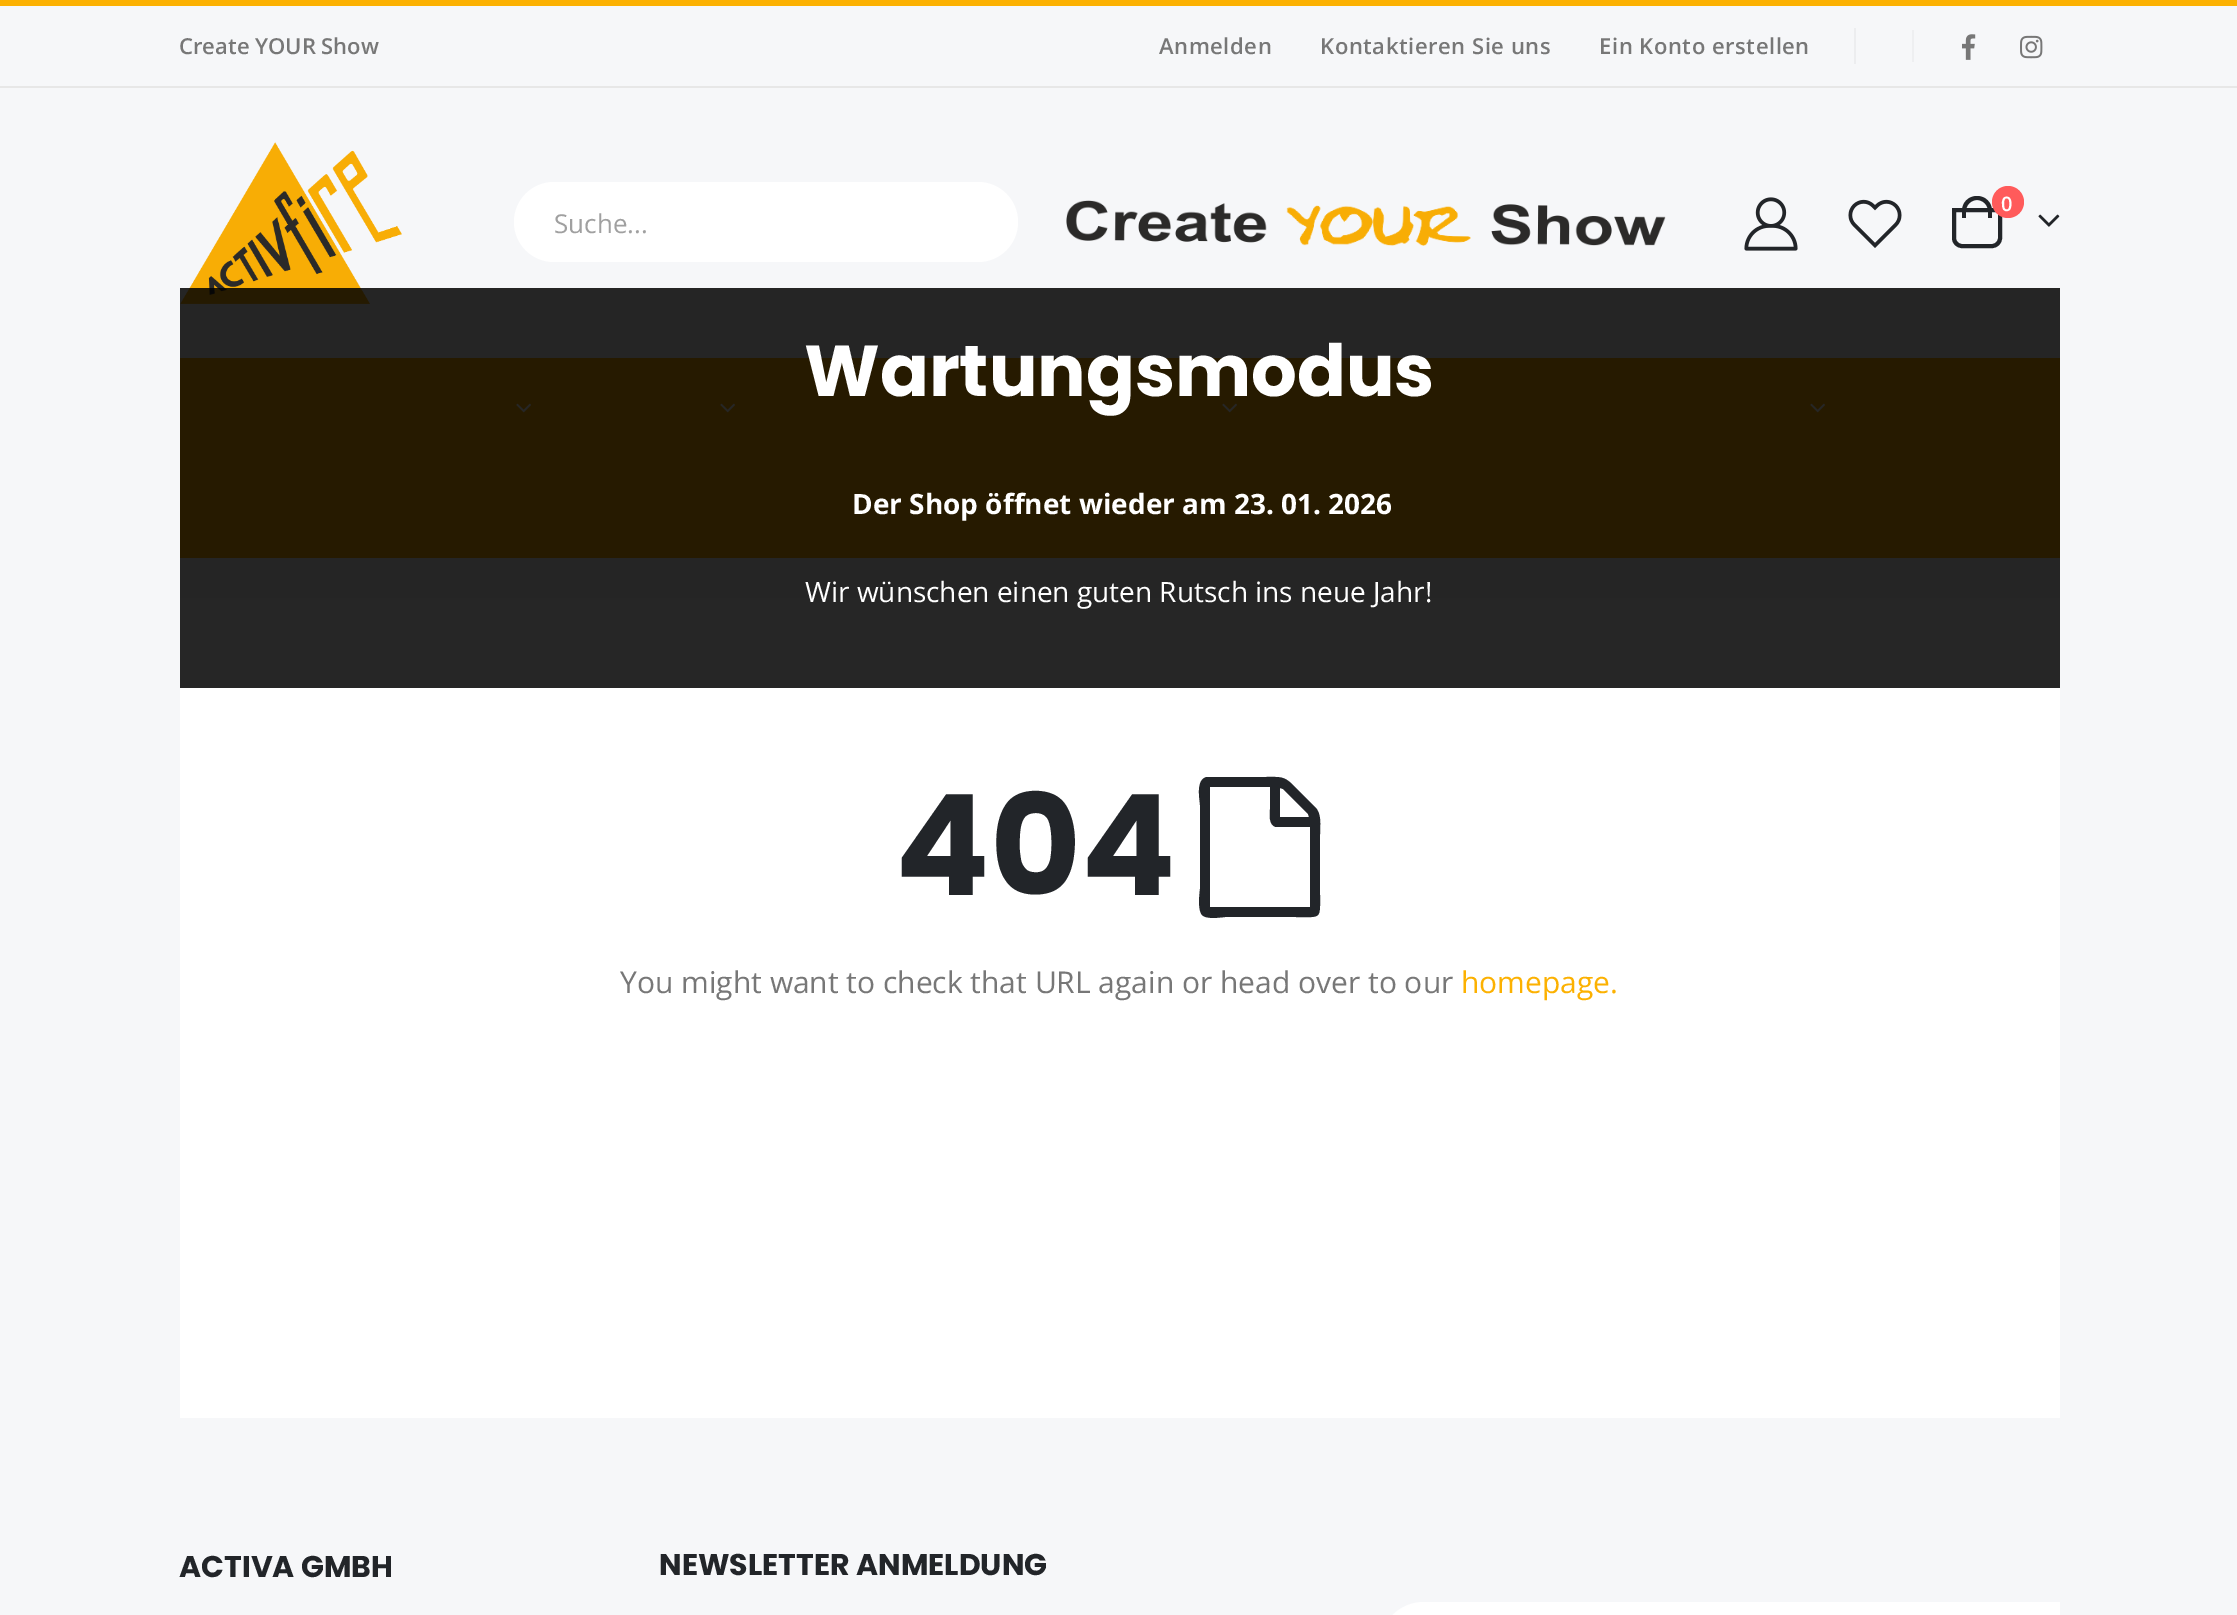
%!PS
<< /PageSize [2237 1615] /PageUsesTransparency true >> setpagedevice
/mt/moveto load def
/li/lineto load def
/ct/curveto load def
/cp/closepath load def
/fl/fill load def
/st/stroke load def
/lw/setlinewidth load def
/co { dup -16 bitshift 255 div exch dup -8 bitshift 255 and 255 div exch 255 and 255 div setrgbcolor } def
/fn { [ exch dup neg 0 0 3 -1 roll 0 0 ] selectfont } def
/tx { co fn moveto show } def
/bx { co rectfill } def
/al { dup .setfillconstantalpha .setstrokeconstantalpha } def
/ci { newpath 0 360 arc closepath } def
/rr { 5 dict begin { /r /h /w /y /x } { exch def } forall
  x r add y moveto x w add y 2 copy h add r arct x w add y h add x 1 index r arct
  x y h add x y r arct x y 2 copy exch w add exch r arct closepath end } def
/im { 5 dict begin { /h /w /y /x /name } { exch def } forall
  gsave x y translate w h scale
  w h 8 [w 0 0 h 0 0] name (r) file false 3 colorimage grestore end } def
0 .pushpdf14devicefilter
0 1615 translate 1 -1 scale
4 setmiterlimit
0 0 2237 1615 16#F6F7F9 bx
0 0 2237 6 16#FCB101 bx
0 86 2237 2 16#E7E7E7 bx
1854 28 2 36 16#ECEDEF bx
1912 30 2 32 16#EEEFF1 bx
(media/1.raw) 1962 34 14 26 im
(media/2.raw) 2020 35 23 24 im
(media/3.raw) 1066 200 600 46 im
(media/4.raw) 1744 197 54 54 im
(media/5.raw) 1848 199 54 49 im
16#222529 co
4 lw
1954 210 mt 2000 210 li 2000 238 li 2000 242.5 1996.5 246 1992 246 ct 1962 246 li 1957.5 246 1954 242.5 1954 238 ct cp st
1977 196 mt 1985.5 196 1992 202.5 1992 211 ct 1992 218 li 1962 218 li 1962 211 li 1962 202.5 1968.5 196 1977 196 ct cp 1977 200 mt 1983 200 1988 205 1988 211 ct 1988 218 li 1966 218 li 1966 211 li 1966 205 1971 200 1977 200 ct cp eofill
16#FF5B5B co
2008 202 16 ci fl
(media/6.raw) 2038 214 22 13 im
16#FFFFFF co
514 182 504 80 40 rr fl
(media/7.raw) 180 142 222 162 im
180 358 1880 200 16#FCB101 bx
(media/8.raw) 516 403 15 10 im
(media/8.raw) 720 403 15 10 im
(media/8.raw) 1222 403 15 10 im
(media/8.raw) 1810 403 15 10 im
180 598 1880 820 16#FFFFFF bx
0.85 al
180 288 1880 400 16#000000 bx
1 al
16#222529 co
1315 807 mt 1322 814 1320 825 1320 835 ct 1320 894 li 1320 920 1322 917 1295 917 ct 1225 917 li 1223 917 1207 920 1202 915 ct 1197 909 1200 890 1200 889 ct 1200 805 li 1200 801 1195 779 1207 777 ct 1266 777 li 1281 777 1284 776 1294 786 ct cp 1280 788 mt 1280 817 li 1309 817 li 1308 814 li 1283 789 li cp 1310 907 mt 1310 827 li 1276 827 li 1268 825 1270 814 1270 809 ct 1270 787 li 1210 787 li 1210 907 li cp fl
16#FFFFFF co
1424 1602 mt 2060 1602 li 2060 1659 li 1424 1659 li 1399.5 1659 1380 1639.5 1380 1615 ct 1380 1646 li 1380 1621.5 1399.5 1602 1424 1602 ct cp fl
(Create YOUR Show) 179 54 /OpenSans-SemiBold 22 16#777777 tx
1159 54 mt .55 0 (Anmelden) ashow
1320 54 mt .55 0 (Kontaktieren Sie uns) ashow
1599 54 mt .55 0 (Ein Konto erstellen) ashow
(0) 2001 211 /OpenSans-SemiBold 20 16#FFFFFF tx
(Suche...) 554 233 /OpenSans-Regular 26 16#A0A0A0 tx
(Wartungsmodus) 804 396 /Poppins-Bold 72 16#FFFFFF tx
(Der Shop öffnet wieder am 23. 01. 2026) 852 514 /OpenSans-Bold 28 16#FFFFFF tx
(Wir wünschen einen guten Rutsch ins neue Jahr!) 805 602 /OpenSans-Regular 28 16#FFFFFF tx
(404) 895 895 /Poppins-Bold 140 16#222529 tx
(You might want to check that URL again or head over to our) 620 993 /OpenSans-Regular 30 16#777777 tx
(homepage.) 1461 993 /OpenSans-Regular 30 16#FCB101 tx
(ACTIVA GMBH) 179 1577 /Poppins-Bold 30 16#222529 tx
(NEWSLETTER ANMELDUNG) 659 1575 /Poppins-Bold 30 16#222529 tx
.poppdf14devicefilter showpage
